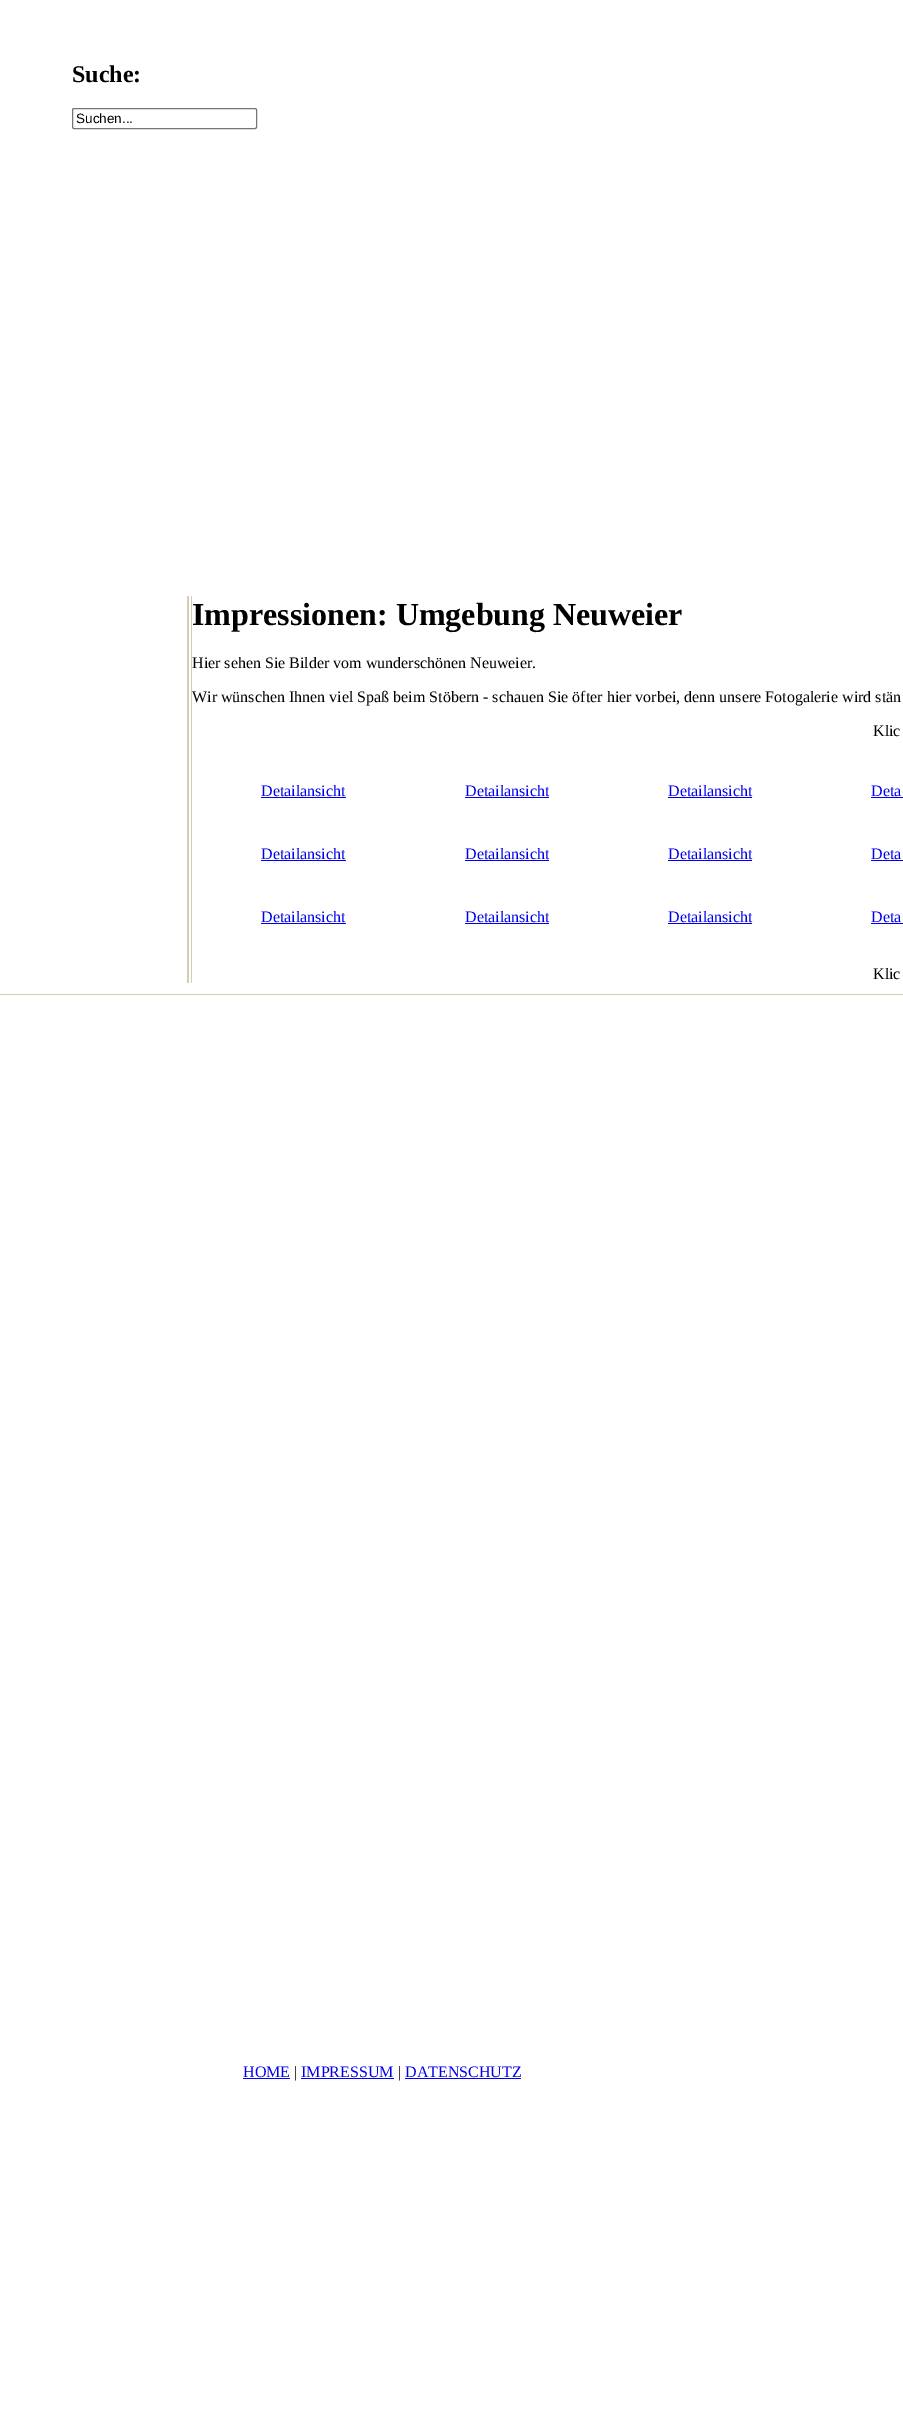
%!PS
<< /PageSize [903 2410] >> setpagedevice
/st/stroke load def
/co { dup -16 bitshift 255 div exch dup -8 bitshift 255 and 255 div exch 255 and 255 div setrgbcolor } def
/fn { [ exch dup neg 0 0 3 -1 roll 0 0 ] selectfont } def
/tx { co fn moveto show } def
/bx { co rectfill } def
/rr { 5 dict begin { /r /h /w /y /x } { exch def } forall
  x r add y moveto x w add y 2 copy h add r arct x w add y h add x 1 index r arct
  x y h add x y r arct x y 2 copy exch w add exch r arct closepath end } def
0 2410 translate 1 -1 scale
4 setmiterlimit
0 0 903 2410 16#FFFFFF bx
16#767676 co
72.5 108.5 184 20 1.5 rr st
187 596 2 387 16#D5CDB8 bx
191 596 1 387 16#D5CDB8 bx
261 797 85 1 16#0000EE bx
465 797 84 1 16#0000EE bx
668 797 84 1 16#0000EE bx
871 797 32 1 16#0000EE bx
261 860 85 1 16#0000EE bx
465 860 84 1 16#0000EE bx
668 860 84 1 16#0000EE bx
871 860 32 1 16#0000EE bx
261 923 85 1 16#0000EE bx
465 923 84 1 16#0000EE bx
668 923 84 1 16#0000EE bx
871 923 32 1 16#0000EE bx
0 994 903 1 16#D5CDB8 bx
243 2078 47 1 16#0000EE bx
301 2078 93 1 16#0000EE bx
405 2078 116 1 16#0000EE bx
(Suche:) 72 82 /LiberationSerif-Bold 24 16#000000 tx
(Suchen...) 76 123 /LiberationSans-Regular 13.5 16#000000 tx
(Impressionen: Umgebung Neuweier) 192 625 /LiberationSerif-Bold 32 16#000000 tx
(Hier sehen Sie Bilder vom wunderschönen Neuweier.) 192 668 /LiberationSerif-Regular 16 16#000000 tx
(Wir wünschen Ihnen viel Spaß beim Stöbern - schauen Sie öfter hier vorbei, denn unsere Fotogalerie wird stän) 192 702 /LiberationSerif-Regular 16 16#000000 tx
(Klic) 873 736 /LiberationSerif-Regular 16 16#000000 tx
(Detailansicht) 261 796 /LiberationSerif-Regular 16 16#0000EE tx
(Detailansicht) 465 796 /LiberationSerif-Regular 16 16#0000EE tx
(Detailansicht) 668 796 /LiberationSerif-Regular 16 16#0000EE tx
(Deta) 871 796 /LiberationSerif-Regular 16 16#0000EE tx
(Detailansicht) 261 859 /LiberationSerif-Regular 16 16#0000EE tx
(Detailansicht) 465 859 /LiberationSerif-Regular 16 16#0000EE tx
(Detailansicht) 668 859 /LiberationSerif-Regular 16 16#0000EE tx
(Deta) 871 859 /LiberationSerif-Regular 16 16#0000EE tx
(Detailansicht) 261 922 /LiberationSerif-Regular 16 16#0000EE tx
(Detailansicht) 465 922 /LiberationSerif-Regular 16 16#0000EE tx
(Detailansicht) 668 922 /LiberationSerif-Regular 16 16#0000EE tx
(Deta) 871 922 /LiberationSerif-Regular 16 16#0000EE tx
(Klic) 873 979 /LiberationSerif-Regular 16 16#000000 tx
(HOME) 243 2077 /LiberationSerif-Regular 16 16#0000EE tx
(|) 294 2077 /LiberationSerif-Regular 16 16#000000 tx
(IMPRESSUM) 301 2077 /LiberationSerif-Regular 16 16#0000EE tx
(|) 398 2077 /LiberationSerif-Regular 16 16#000000 tx
(DATENSCHUTZ) 405 2077 /LiberationSerif-Regular 16 16#0000EE tx
showpage
